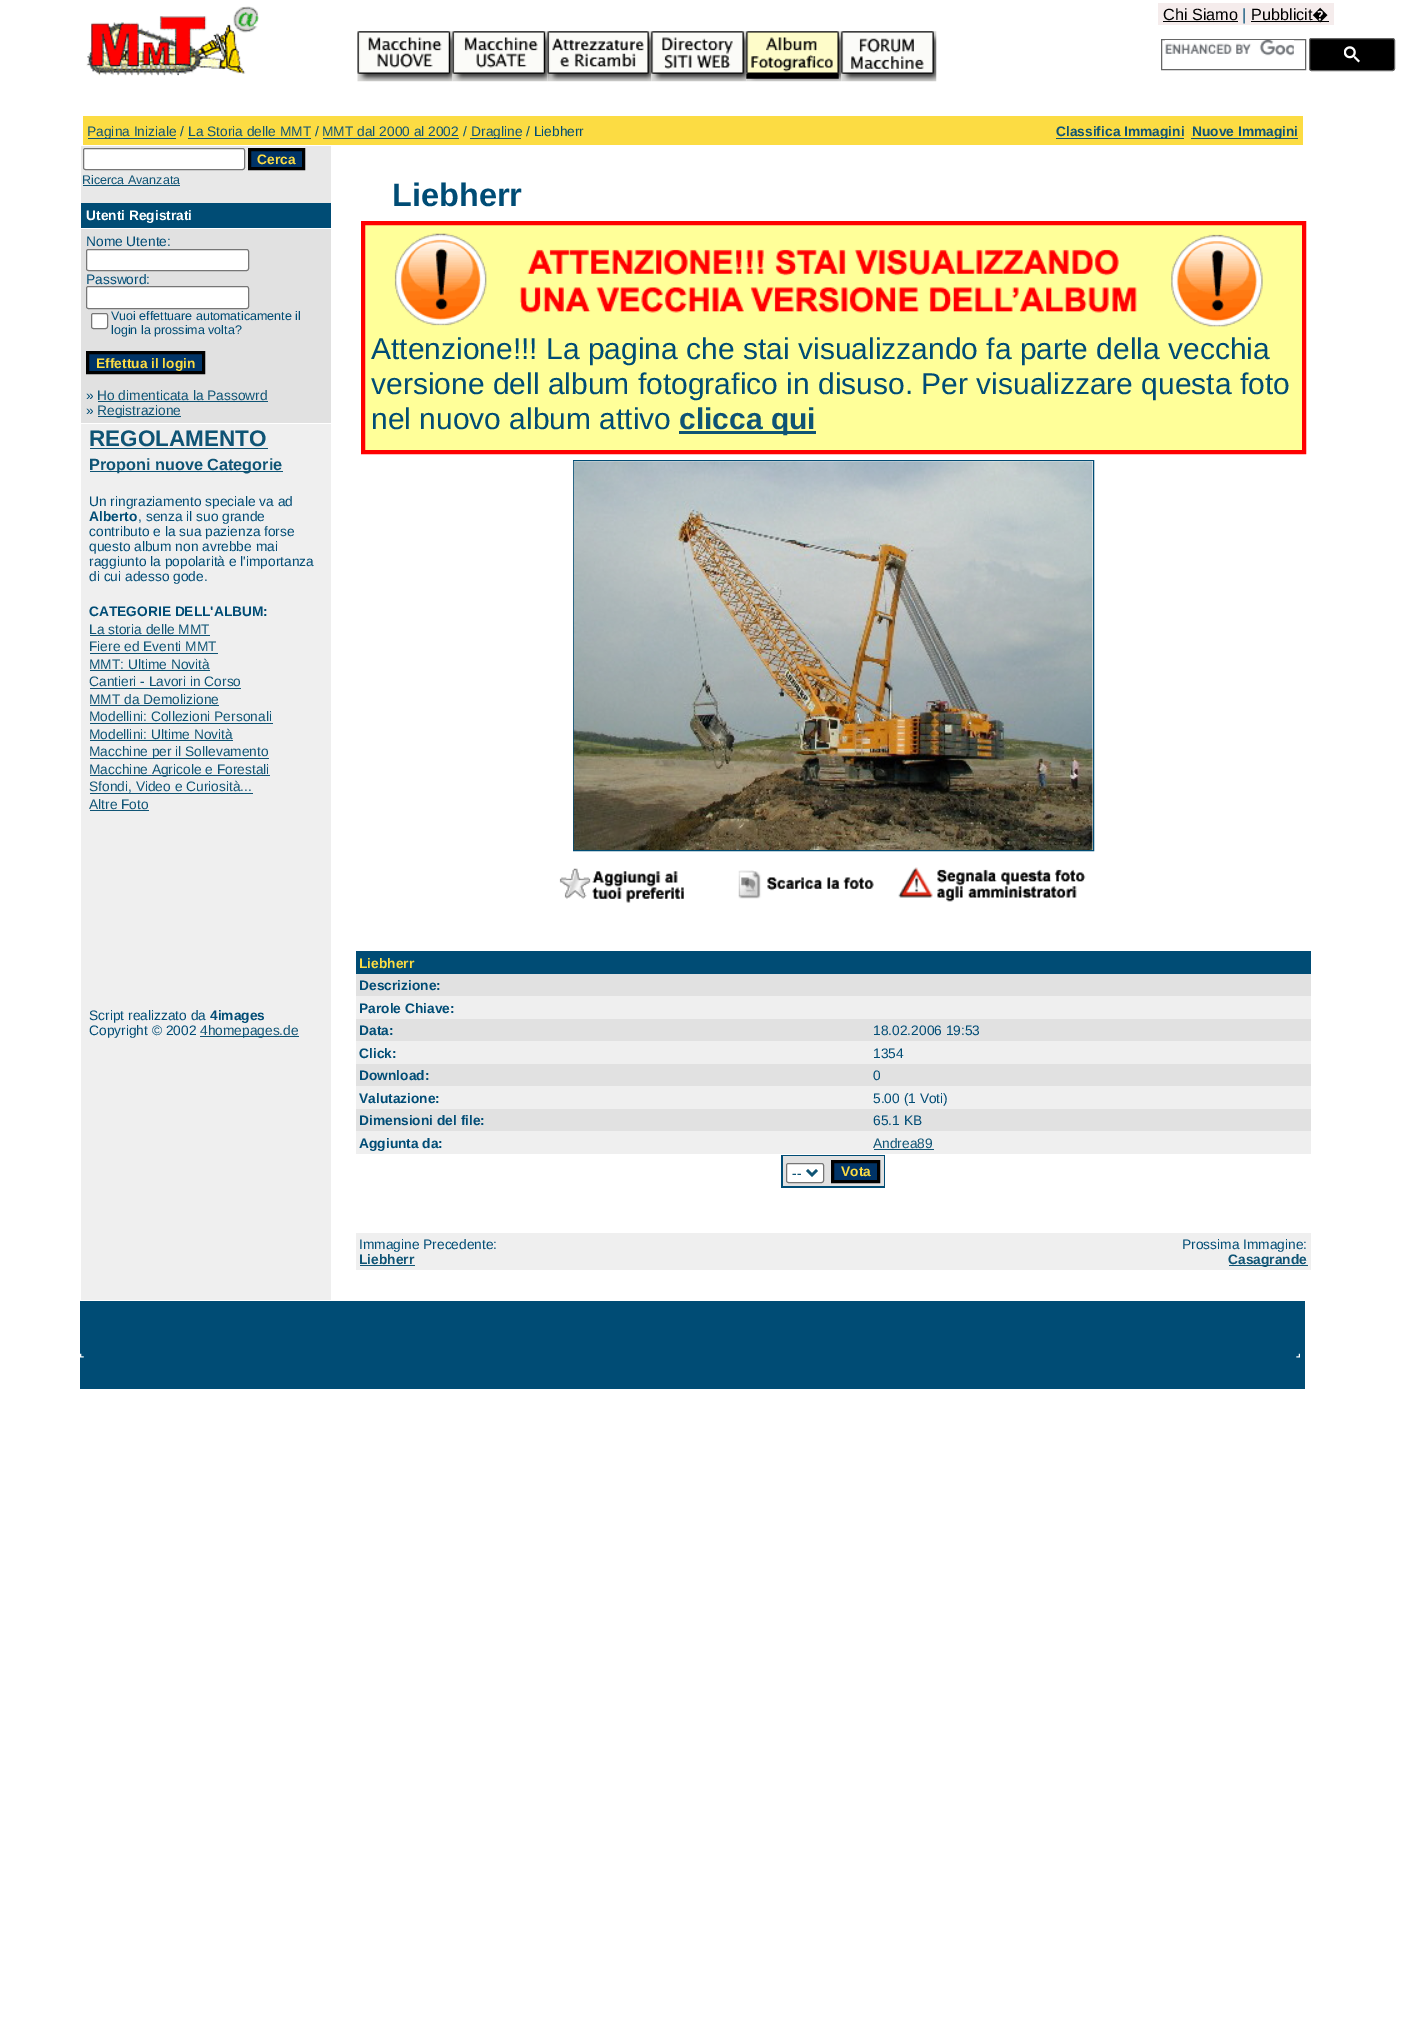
%!PS
<< /PageSize [1416 2023] >> setpagedevice
/mt/moveto load def
/li/lineto load def
/cp/closepath load def
/fl/fill load def
/st/stroke load def
/gs/gsave load def
/gr/grestore load def
/lw/setlinewidth load def
/co { dup -16 bitshift 255 div exch dup -8 bitshift 255 and 255 div exch 255 and 255 div setrgbcolor } def
/fn { [ exch dup neg 0 0 3 -1 roll 0 0 ] selectfont } def
/tx { co fn moveto show } def
/bx { co rectfill } def
/rr { 5 dict begin { /r /h /w /y /x } { exch def } forall
  x r add y moveto x w add y 2 copy h add r arct x w add y h add x 1 index r arct
  x y h add x y r arct x y 2 copy exch w add exch r arct closepath end } def
/im { 5 dict begin { /h /w /y /x /name } { exch def } forall
  gsave x y translate w h scale
  w h 8 [w 0 0 h 0 0] name (r) file false 3 colorimage grestore end } def
0 2023 translate 1 -1 scale
4 setmiterlimit
0 0 1416 2023 16#FFFFFF bx
(media/1.raw) 86 6 173 70 im
1158 3 176 22 16#F5ECEC bx
1163 21 75 1 16#000000 bx
1251 21 78 1 16#000000 bx
(media/2.raw) 357 31 96 51 im
(media/3.raw) 368 37 74 31 im
(media/4.raw) 452 31 96 51 im
(media/5.raw) 464 37 74 31 im
(media/6.raw) 547 31 105 51 im
(media/7.raw) 552 38 92 29 im
(media/8.raw) 651 31 96 51 im
(media/9.raw) 662 37 71 32 im
(media/10.raw) 746 31 96 51 im
(media/11.raw) 751 37 82 35 im
(media/8.raw) 841 31 96 51 im
(media/12.raw) 851 38 73 31 im
16#666666 co
1161.5 39.5 144 30 rectstroke
(media/13.raw) 1165 40 129 16 im
16#000000 co
1309.5 38.5 85 32 2 rr gs fl gr
16#666666 co
st
(media/14.raw) 1344 46 16 17 im
83 116 1220 29 16#FCDC43 bx
88 138 88 1 16#0F5475 bx
188 138 123 1 16#0F5475 bx
323 138 136 1 16#0F5475 bx
470 138 51 1 16#0F5475 bx
1056 138 128 1 16#0F5475 bx
1191 138 107 1 16#0F5475 bx
81 424 250 876 16#EFEFEF bx
81 146 250 57 16#E8E8E8 bx
16#FFFFFF co
83.5 148.5 161 21 2 rr gs fl gr
16#767676 co
st
16#003366 co
249.5 149.5 mt 303.5 149.5 li 303.5 168.5 li 249.5 168.5 li cp gs fl gr
16#000000 co
3 lw
st
83 185 97 1 16#0F5475 bx
81 203 250 25 16#004C75 bx
81 229 250 194 16#E1E1E1 bx
16#FFFFFF co
86.5 249.5 162 21 2 rr gs fl gr
16#767676 co
1 lw
st
16#FFFFFF co
86.5 286.5 162 22 2 rr gs fl gr
16#767676 co
st
16#FFFFFF co
91.5 313.5 16 15 2 rr gs fl gr
16#767676 co
st
16#003366 co
87.5 352.5 mt 203.5 352.5 li 203.5 372.5 li 87.5 372.5 li cp gs fl gr
16#000000 co
3 lw
st
98 401 170 1 16#0F5475 bx
98 416 83 1 16#0F5475 bx
90 448 178 1 16#0F5475 bx
90 471 193 1 16#0F5475 bx
90 635 120 1 16#0F5475 bx
90 653 128 1 16#0F5475 bx
90 670 120 1 16#0F5475 bx
90 688 151 1 16#0F5475 bx
90 705 129 1 16#0F5475 bx
90 723 183 1 16#0F5475 bx
90 740 143 1 16#0F5475 bx
90 758 179 1 16#0F5475 bx
90 775 180 1 16#0F5475 bx
90 793 163 1 16#0F5475 bx
90 810 59 1 16#0F5475 bx
200 1036 99 1 16#0F5475 bx
16#FFFF99 co
363 223 mt 1304 223 li 1304 452 li 363 452 li cp gs fl gr
16#FF0000 co
4 lw
st
(media/15.raw) 394 233 869 94 im
679 431 137 3 16#0F5475 bx
16#004C75 co
1 lw
573.5 460.5 520 390 rectstroke
(media/16.raw) 573 461 520 389 im
(media/17.raw) 559 868 125 35 im
(media/18.raw) 738 870 136 29 im
(media/19.raw) 898 867 188 35 im
356 951 955 23 16#004C75 bx
356 974 955 22 16#E1E1E1 bx
356 996 955 23 16#EFEFEF bx
356 1019 955 22 16#E1E1E1 bx
356 1041 955 23 16#EFEFEF bx
356 1064 955 22 16#E1E1E1 bx
356 1086 955 23 16#EFEFEF bx
356 1109 955 22 16#E1E1E1 bx
356 1131 955 23 16#EFEFEF bx
874 1149 60 1 16#0F5475 bx
781 1155 104 33 16#004C75 bx
783 1156 101 30 16#E1E1E1 bx
16#FFFFFF co
786.5 1163.5 37 19 2 rr gs fl gr
16#767676 co
st
16#0F5475 co
2.5 lw
807 1170 mt 812 1175 li 817 1170 li st
16#003366 co
832.5 1161.5 mt 878.5 1161.5 li 878.5 1181.5 li 832.5 1181.5 li cp gs fl gr
16#000000 co
3 lw
st
356 1233 955 37 16#EFEFEF bx
360 1265 55 1 16#0F5475 bx
1229 1265 79 1 16#0F5475 bx
80 1301 1225 88 16#004C75 bx
(media/20.raw) 80 1353 4 5 im
(media/21.raw) 1296 1353 4 5 im
(Chi Siamo) 1163 20 /LiberationSans-Regular 16.25 16#000000 tx
(|) 1242 20 /LiberationSans-Regular 16.25 16#004C75 tx
(Pubblicit) 1251 20 /LiberationSans-Regular 16.25 16#000000 tx
(�) 1312 20 /NotoSans-Regular 16.25 16#000000 tx
(Pagina Iniziale) 87 136 /LiberationSans-Regular 13.75 16#0F5475 tx
(/) 180 136 /LiberationSans-Regular 13.75 16#004C75 tx
(La Storia delle MMT) 188 136 /LiberationSans-Regular 13.75 16#0F5475 tx
(/) 315 136 /LiberationSans-Regular 13.75 16#004C75 tx
(MMT dal 2000 al 2002) 322 136 /LiberationSans-Regular 13.75 16#0F5475 tx
(/) 463 136 /LiberationSans-Regular 13.75 16#004C75 tx
(Dragline) 471 136 /LiberationSans-Regular 13.75 16#0F5475 tx
(/ Liebherr) 526 136 /LiberationSans-Regular 13.75 16#004C75 tx
(Classifica Immagini) 1056 136 /LiberationSans-Bold 13.75 16#0F5475 tx
(Nuove Immagini) 1192 136 /LiberationSans-Bold 13.75 16#0F5475 tx
(Cerca) 257 164 /LiberationSans-Bold 13.75 16#FCDC43 tx
(Ricerca Avanzata) 82 184 /LiberationSans-Regular 12.5 16#0F5475 tx
(Utenti Registrati) 86 220 /LiberationSans-Bold 13.75 16#FFFFFF tx
(Nome Utente:) 86 246 /LiberationSans-Regular 13.75 16#004C75 tx
(Password:) 86 284 /LiberationSans-Regular 13.75 16#004C75 tx
(Vuoi effettuare automaticamente il) 111 320 /LiberationSans-Regular 12.5 16#004C75 tx
(login la prossima volta?) 111 334 /LiberationSans-Regular 12.5 16#004C75 tx
(Effettua il login) 96 368 /LiberationSans-Bold 13.75 16#FCDC43 tx
(») 86 400 /LiberationSans-Regular 13.75 16#004C75 tx
(Ho dimenticata la Passowrd) 97 400 /LiberationSans-Regular 13.75 16#0F5475 tx
(») 86 415 /LiberationSans-Regular 13.75 16#004C75 tx
(Registrazione) 97 415 /LiberationSans-Regular 13.75 16#0F5475 tx
(REGOLAMENTO) 89 446 /LiberationSans-Bold 22.5 16#0F5475 tx
(Proponi nuove Categorie) 89 470 /LiberationSans-Bold 16.25 16#0F5475 tx
(Un ringraziamento speciale va ad) 89 506 /LiberationSans-Regular 13.75 16#004C75 tx
(Alberto) 89 521 /LiberationSans-Bold 13.75 16#004C75 tx
(, senza il suo grande) 138 521 /LiberationSans-Regular 13.75 16#004C75 tx
(contributo e la sua pazienza forse) 89 536 /LiberationSans-Regular 13.75 16#004C75 tx
(questo album non avrebbe mai) 89 551 /LiberationSans-Regular 13.75 16#004C75 tx
(raggiunto la popolarità e l'importanza) 89 566 /LiberationSans-Regular 13.75 16#004C75 tx
(di cui adesso gode.) 89 581 /LiberationSans-Regular 13.75 16#004C75 tx
(CATEGORIE DELL'ALBUM:) 89 616 /LiberationSans-Bold 13.75 16#004C75 tx
(La storia delle MMT) 89 634 /LiberationSans-Regular 13.75 16#0F5475 tx
(Fiere ed Eventi MMT) 89 651 /LiberationSans-Regular 13.75 16#0F5475 tx
(MMT: Ultime Novità) 89 669 /LiberationSans-Regular 13.75 16#0F5475 tx
(Cantieri - Lavori in Corso) 89 686 /LiberationSans-Regular 13.75 16#0F5475 tx
(MMT da Demolizione) 89 704 /LiberationSans-Regular 13.75 16#0F5475 tx
(Modellini: Collezioni Personali) 89 721 /LiberationSans-Regular 13.75 16#0F5475 tx
(Modellini: Ultime Novità) 89 739 /LiberationSans-Regular 13.75 16#0F5475 tx
(Macchine per il Sollevamento) 89 756 /LiberationSans-Regular 13.75 16#0F5475 tx
(Macchine Agricole e Forestali) 89 774 /LiberationSans-Regular 13.75 16#0F5475 tx
(Sfondi, Video e Curiosità...) 89 791 /LiberationSans-Regular 13.75 16#0F5475 tx
(Altre Foto) 89 809 /LiberationSans-Regular 13.75 16#0F5475 tx
(Script realizzato da) 89 1020 /LiberationSans-Regular 13.75 16#004C75 tx
(4images) 210 1020 /LiberationSans-Bold 13.75 16#004C75 tx
(Copyright © 2002) 89 1035 /LiberationSans-Regular 13.75 16#004C75 tx
(4homepages.de) 200 1035 /LiberationSans-Regular 13.75 16#0F5475 tx
(Liebherr) 392 206 /LiberationSans-Bold 32.5 16#004C75 tx
(Attenzione!!! La pagina che stai visualizzando fa parte della vecchia) 371 359 /LiberationSans-Regular 30 16#004C75 tx
(versione dell album fotografico in disuso. Per visualizzare questa foto) 371 394 /LiberationSans-Regular 30 16#004C75 tx
(nel nuovo album attivo) 371 429 /LiberationSans-Regular 30 16#004C75 tx
(clicca qui) 679 429 /LiberationSans-Bold 30 16#0F5475 tx
(Liebherr) 359 968 /LiberationSans-Bold 13.75 16#FCDC43 tx
(Descrizione:) 359 990 /LiberationSans-Bold 13.75 16#004C75 tx
(Parole Chiave:) 359 1013 /LiberationSans-Bold 13.75 16#004C75 tx
(Data:) 359 1035 /LiberationSans-Bold 13.75 16#004C75 tx
(18.02.2006 19:53) 873 1035 /LiberationSans-Regular 13.75 16#004C75 tx
(Click:) 359 1058 /LiberationSans-Bold 13.75 16#004C75 tx
(1354) 873 1058 /LiberationSans-Regular 13.75 16#004C75 tx
(Download:) 359 1080 /LiberationSans-Bold 13.75 16#004C75 tx
(0) 873 1080 /LiberationSans-Regular 13.75 16#004C75 tx
(Valutazione:) 359 1103 /LiberationSans-Bold 13.75 16#004C75 tx
(5.00 \(1 Voti\)) 873 1103 /LiberationSans-Regular 13.75 16#004C75 tx
(Dimensioni del file:) 359 1125 /LiberationSans-Bold 13.75 16#004C75 tx
(65.1 KB) 873 1125 /LiberationSans-Regular 13.75 16#004C75 tx
(Aggiunta da:) 359 1148 /LiberationSans-Bold 13.75 16#004C75 tx
(Andrea89) 873 1148 /LiberationSans-Regular 13.75 16#0F5475 tx
(--) 792 1178 /LiberationSans-Regular 13.75 16#0F5475 tx
(Vota) 841 1176 /LiberationSans-Bold 13.75 16#FCDC43 tx
(Immagine Precedente:) 359 1249 /LiberationSans-Regular 13.75 16#004C75 tx
(Liebherr) 359 1264 /LiberationSans-Bold 13.75 16#0F5475 tx
(Prossima Immagine:) 1182 1249 /LiberationSans-Regular 13.75 16#004C75 tx
(Casagrande) 1228 1264 /LiberationSans-Bold 13.75 16#0F5475 tx
showpage
